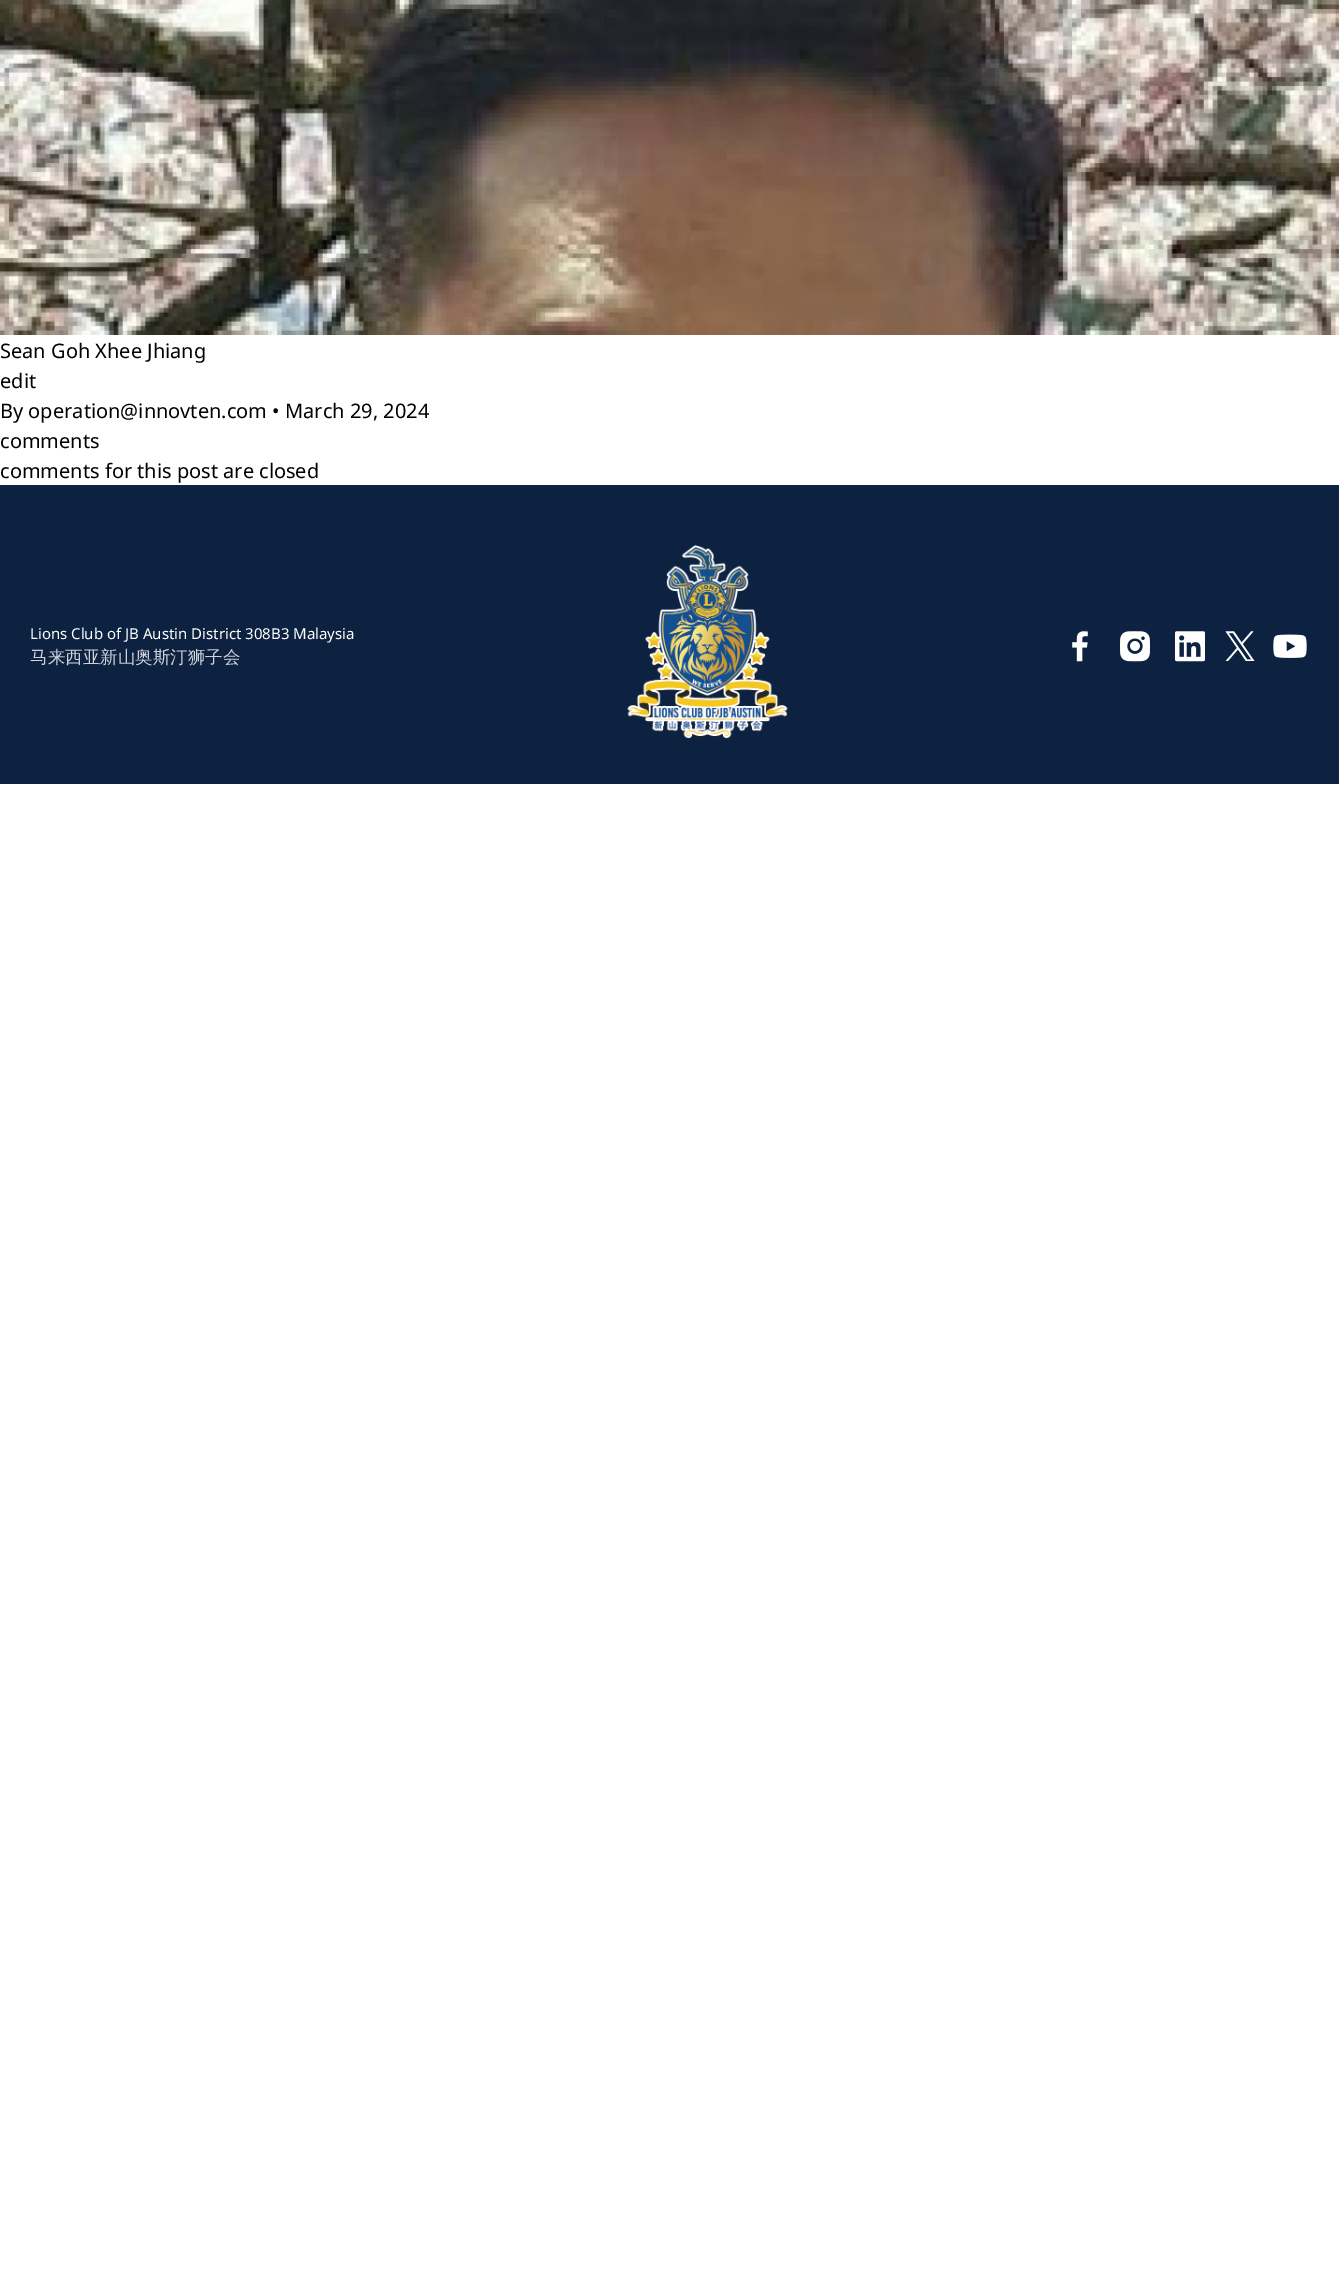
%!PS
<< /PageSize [1339 2270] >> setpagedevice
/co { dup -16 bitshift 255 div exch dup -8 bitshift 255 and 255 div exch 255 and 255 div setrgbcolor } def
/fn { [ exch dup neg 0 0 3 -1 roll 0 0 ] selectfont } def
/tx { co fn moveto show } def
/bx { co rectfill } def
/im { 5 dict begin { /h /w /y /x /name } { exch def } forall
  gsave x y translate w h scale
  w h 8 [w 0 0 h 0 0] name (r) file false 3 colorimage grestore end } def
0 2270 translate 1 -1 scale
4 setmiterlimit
0 0 1339 2270 16#FFFFFF bx
(media/1.raw) 0 0 1339 335 im
0 485 1339 299 16#0D2240 bx
(media/2.raw) 627 545 161 194 im
(media/3.raw) 1072 631 16 31 im
(media/4.raw) 1120 631 30 31 im
(media/5.raw) 1175 631 30 31 im
(media/6.raw) 1225 631 30 30 im
(media/7.raw) 1273 634 34 24 im
(Sean Goh Xhee Jhiang) 0 358 /NotoSans-Regular 20 16#000000 tx
(edit) 0 388 /NotoSans-Regular 20 16#000000 tx
(By operation@innovten.com • March 29, 2024) 0 418 /NotoSans-Regular 20 16#000000 tx
(comments) 0 448 /NotoSans-Regular 20 16#000000 tx
(comments for this post are closed) 0 478 /NotoSans-Regular 20 16#000000 tx
(Lions Club of JB Austin District 308B3 Malaysia) 30 639 /NotoSans-Regular 15 16#FFFFFF tx
(马来西亚新山奥斯汀狮子会) 30 663 /WenQuanYiZenHei-Medium 17.5 16#CFD3D9 tx
showpage
